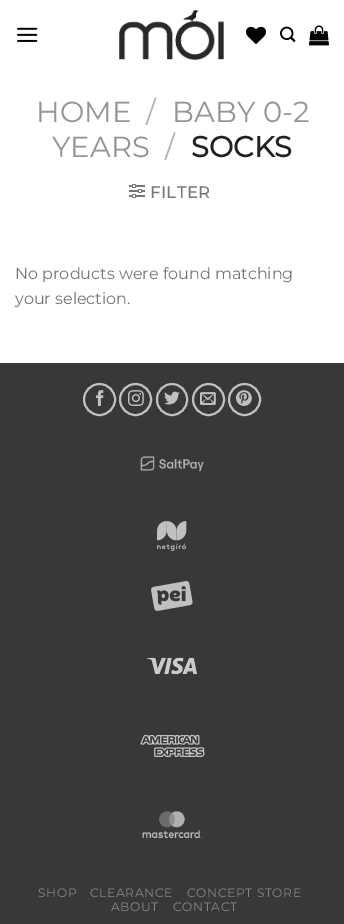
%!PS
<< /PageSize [344 924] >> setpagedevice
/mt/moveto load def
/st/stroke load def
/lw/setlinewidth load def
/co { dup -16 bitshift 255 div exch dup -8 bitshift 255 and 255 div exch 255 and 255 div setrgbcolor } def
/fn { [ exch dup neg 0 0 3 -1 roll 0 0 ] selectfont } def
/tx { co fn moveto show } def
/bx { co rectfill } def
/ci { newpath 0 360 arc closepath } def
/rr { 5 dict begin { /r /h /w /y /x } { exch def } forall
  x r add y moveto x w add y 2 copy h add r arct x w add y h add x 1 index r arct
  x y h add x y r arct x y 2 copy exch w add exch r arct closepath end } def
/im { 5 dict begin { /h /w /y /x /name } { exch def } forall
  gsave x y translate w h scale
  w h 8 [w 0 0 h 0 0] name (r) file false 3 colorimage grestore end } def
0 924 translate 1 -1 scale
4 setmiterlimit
0 0 344 924 16#FFFFFF bx
(media/1.raw) 17 27 21 15 im
(media/2.raw) 119 10 105 50 im
(media/3.raw) 246 26 20 18 im
(media/4.raw) 280 26 16 16 im
(media/5.raw) 309 25 20 21 im
(media/6.raw) 129 184 16 14 im
0 363 344 503 16#383838 bx
16#C0C0C0 co
2 lw
99.5 399.5 15.5 ci st
(media/7.raw) 95 390 9 16 im
135.5 399.5 15.5 ci st
(media/8.raw) 128 390 16 16 im
157 384 30 31 15 rr st
(media/9.raw) 164 391 16 14 im
208.5 399.5 15.5 ci st
(media/10.raw) 200 392 16 13 im
244.5 399.5 15.5 ci st
(media/11.raw) 236 390 16 16 im
(media/12.raw) 140 456 64 16 im
(media/13.raw) 157 521 30 30 im
(media/14.raw) 151 581 42 30 im
(media/15.raw) 147 657 50 18 im
(media/16.raw) 140 735 65 22 im
(media/17.raw) 142 811 60 27 im
0 866 344 58 16#383838 bx
(HOME) 36 122 /Montserrat-Thin 29 16#949494 tx
(/) 146 122 /Montserrat-Thin 29 16#B2B2B2 tx
(BABY 0-2) 172 122 /Montserrat-Thin 29 16#949494 tx
(YEARS) 52 157 /Montserrat-Thin 29 16#949494 tx
(/) 165 157 /Montserrat-Thin 29 16#B2B2B2 tx
(SOCKS) 191 157 /Montserrat-Bold 29 16#222222 tx
/Montserrat-Bold 16 fn
16#777777 co
150 198 mt .75 0 (FILTER) ashow
(No products were found matching) 15 279 /Montserrat-Thin 16 16#777777 tx
(your selection.) 15 304 /Montserrat-Thin 16 16#777777 tx
/Montserrat-Thin 12.25 fn
16#888888 co
38 897 mt .6 0 (SHOP) ashow
90 897 mt .6 0 (CLEARANCE) ashow
187 897 mt .6 0 (CONCEPT STORE) ashow
111 911 mt .6 0 (ABOUT) ashow
173 911 mt .6 0 (CONTACT) ashow
showpage
